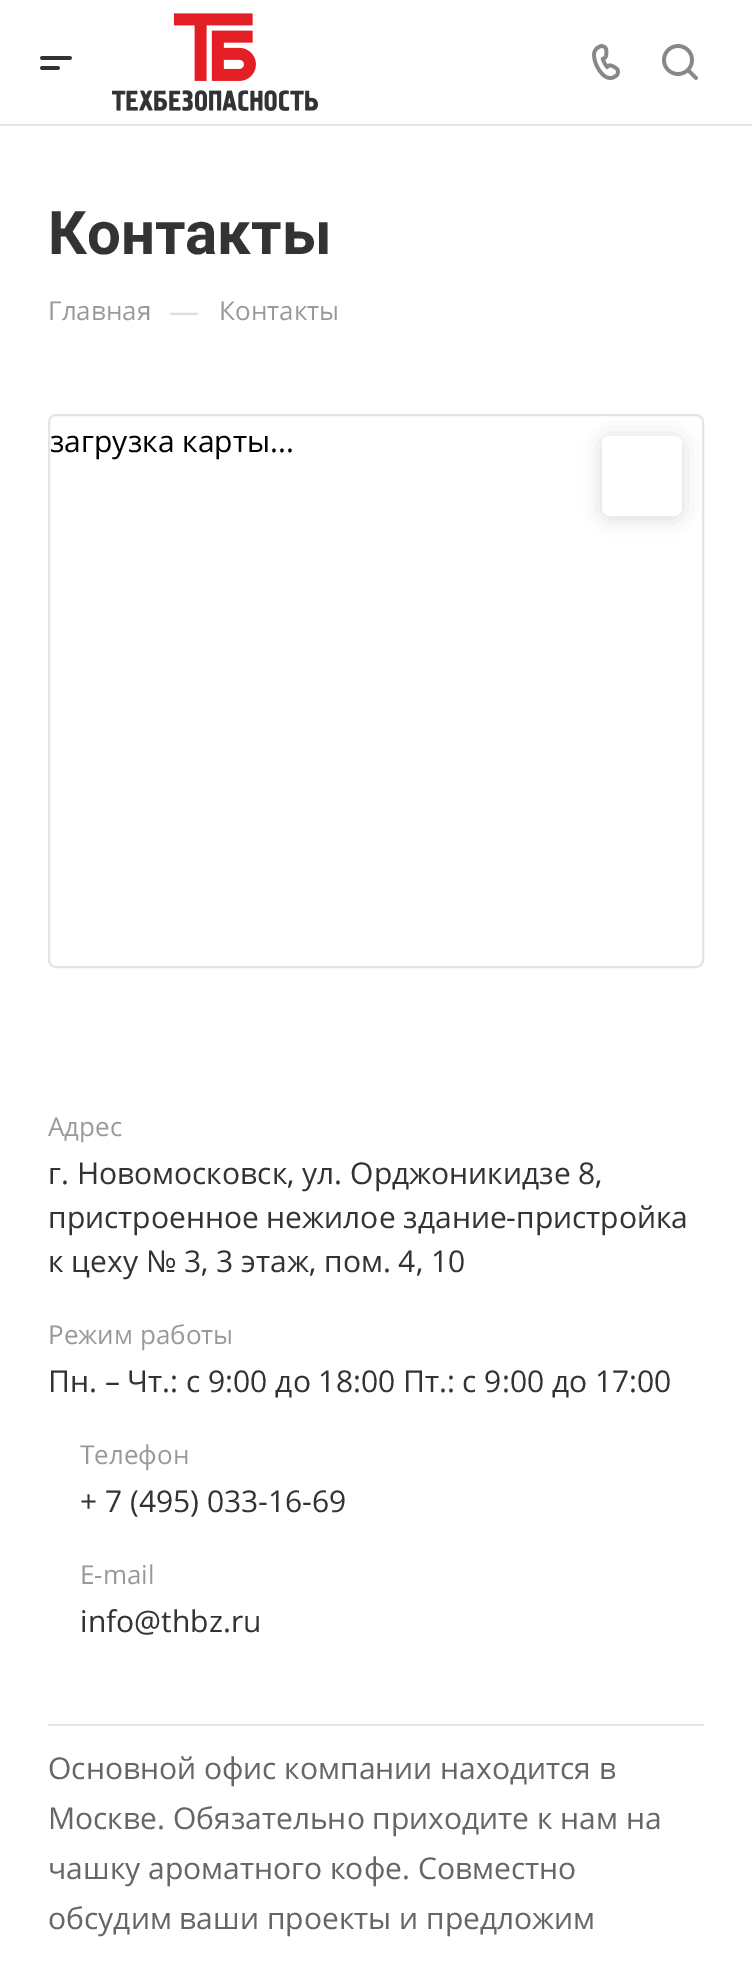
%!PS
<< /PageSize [752 1965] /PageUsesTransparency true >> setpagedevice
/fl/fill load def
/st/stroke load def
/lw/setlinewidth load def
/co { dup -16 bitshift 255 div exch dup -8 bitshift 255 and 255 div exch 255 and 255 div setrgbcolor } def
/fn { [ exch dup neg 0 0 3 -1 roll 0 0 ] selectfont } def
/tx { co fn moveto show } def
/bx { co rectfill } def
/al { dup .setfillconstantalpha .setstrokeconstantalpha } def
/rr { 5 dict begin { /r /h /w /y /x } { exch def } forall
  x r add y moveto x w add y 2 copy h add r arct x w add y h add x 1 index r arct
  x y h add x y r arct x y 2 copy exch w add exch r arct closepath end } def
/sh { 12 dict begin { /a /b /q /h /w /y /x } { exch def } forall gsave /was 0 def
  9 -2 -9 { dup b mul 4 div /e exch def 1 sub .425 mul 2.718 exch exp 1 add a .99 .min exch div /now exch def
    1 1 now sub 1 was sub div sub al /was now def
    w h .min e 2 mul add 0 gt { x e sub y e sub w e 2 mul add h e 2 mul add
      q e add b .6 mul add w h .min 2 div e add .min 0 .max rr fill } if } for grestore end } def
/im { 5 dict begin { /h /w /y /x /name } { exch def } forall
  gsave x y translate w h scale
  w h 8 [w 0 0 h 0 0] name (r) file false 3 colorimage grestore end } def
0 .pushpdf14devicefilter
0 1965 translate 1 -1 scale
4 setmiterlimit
0 0 752 1965 16#FFFFFF bx
0 124 752 2 16#E5E5E5 bx
(media/1.raw) 40 56 32 14 im
(media/2.raw) 112 13 206 98 im
(media/3.raw) 592 44 28 36 im
(media/4.raw) 662 44 36 36 im
2 lw
49 415 654 552 7 rr st
16#000000 co
602 438 80 80 8 10 .15 sh
16#FFFFFF co
602 436 80 80 8 rr fl
48 1724 656 2 16#E5E5E5 bx
(Контакты) 48 254 /Roboto-Bold 60 16#333333 tx
(Главная) 48 320 /OpenSans-Regular 26 16#999999 tx
(—) 169 322 /OpenSans-Regular 30 16#DDDDDD tx
(Контакты) 219 320 /OpenSans-Regular 26 16#999999 tx
(загрузка карты...) 50 452 /OpenSans-Regular 30 16#000000 tx
(Адрес) 48 1136 /OpenSans-Regular 26 16#999999 tx
(г. Новомосковск, ул. Орджоникидзе 8,) 48 1184 /OpenSans-Regular 30 16#333333 tx
(пристроенное нежилое здание-пристройка) 48 1228 /OpenSans-Regular 30 16#333333 tx
(к цеху № 3, 3 этаж, пом. 4, 10) 48 1272 /OpenSans-Regular 30 16#333333 tx
(Режим работы) 48 1344 /OpenSans-Regular 26 16#999999 tx
(Пн. – Чт.: с 9:00 до 18:00 Пт.: с 9:00 до 17:00) 48 1392 /OpenSans-Regular 30 16#333333 tx
(Телефон) 80 1464 /OpenSans-Regular 26 16#999999 tx
(+ 7 \(495\) 033-16-69) 80 1512 /OpenSans-Regular 30 16#333333 tx
(E-mail) 80 1584 /OpenSans-Regular 26 16#999999 tx
(info@thbz.ru) 80 1632 /OpenSans-Regular 30 16#333333 tx
(Основной офис компании находится в) 48 1779 /OpenSans-Regular 30 16#666666 tx
(Москве. Обязательно приходите к нам на) 48 1829 /OpenSans-Regular 30 16#666666 tx
(чашку ароматного кофе. Совместно) 48 1879 /OpenSans-Regular 30 16#666666 tx
(обсудим ваши проекты и предложим) 48 1929 /OpenSans-Regular 30 16#666666 tx
.poppdf14devicefilter showpage
